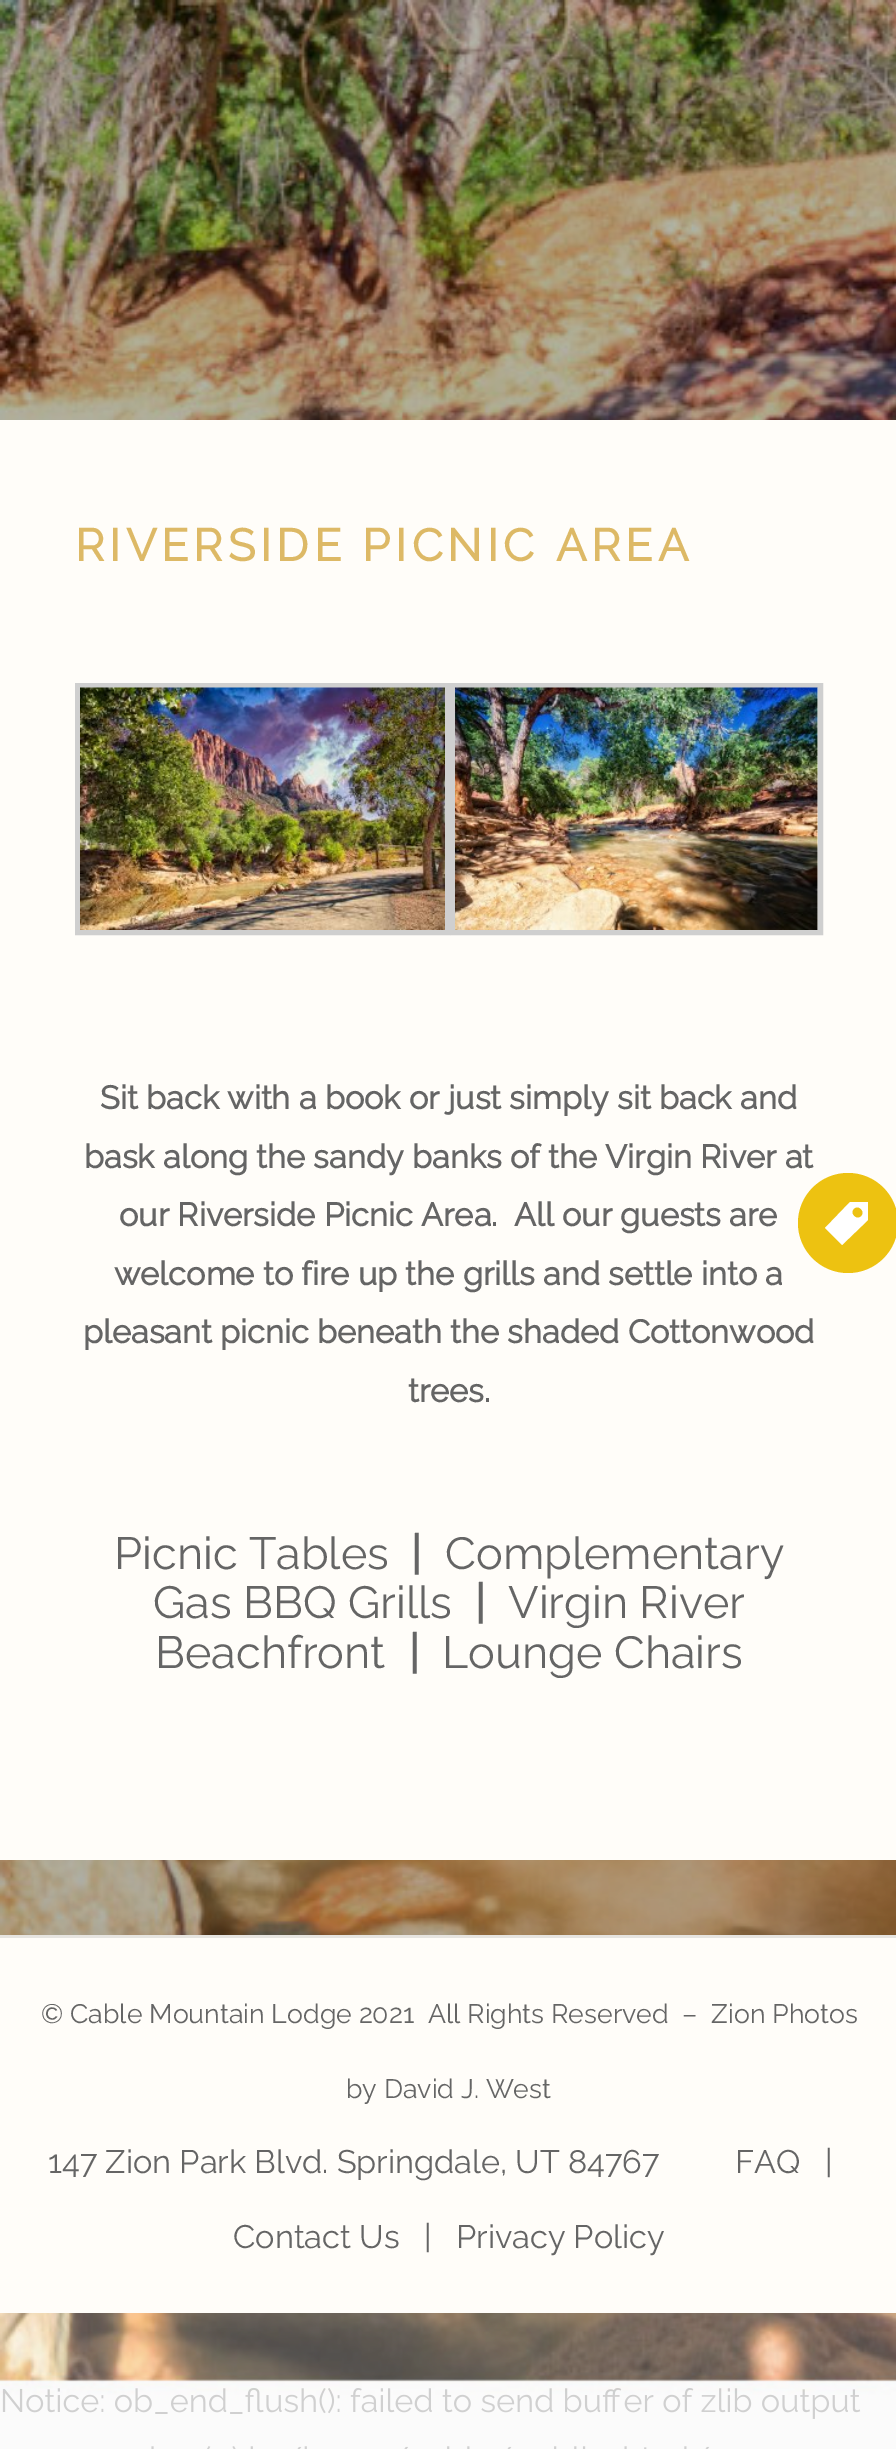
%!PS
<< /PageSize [896 2449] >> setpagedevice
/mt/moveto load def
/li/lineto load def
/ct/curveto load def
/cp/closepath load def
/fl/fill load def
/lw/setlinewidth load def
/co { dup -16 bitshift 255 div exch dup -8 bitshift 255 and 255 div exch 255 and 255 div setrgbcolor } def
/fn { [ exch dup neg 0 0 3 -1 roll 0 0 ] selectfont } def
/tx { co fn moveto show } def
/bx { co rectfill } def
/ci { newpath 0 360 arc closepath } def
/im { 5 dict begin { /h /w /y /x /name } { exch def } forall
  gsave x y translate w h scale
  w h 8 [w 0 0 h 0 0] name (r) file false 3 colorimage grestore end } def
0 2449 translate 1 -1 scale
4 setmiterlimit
0 0 896 2449 16#F2F2F2 bx
0 0 896 1935 16#000000 bx
(Notice) 0 2412 /Raleway-Bold 32.5 16#656565 tx
(: ob_end_flush\(\): failed to send buffer of zlib output) 99 2412 /Raleway-Thin 32.5 16#656565 tx
(media/1.raw) 0 0 896 2449 im
0 420 896 1440 16#FFFDF9 bx
(bask along the sandy banks of the Virgin River at) 84 1168 /Raleway-Bold 32.5 16#656565 tx
16#EDC211 co
848 1223 50 ci fl
16#FFFFFF co
850 1202 mt 868 1202 li 868 1220 li 842 1245 li 825 1228 li cp 854 1216 mt 859 1221 866 1214 861 1209 ct 856 1204 849 1211 854 1216 ct cp fl
0 1938 896 375 16#FFFDF9 bx
(Privacy Policy) 456 2248 /Raleway-Thin 32.5 16#656565 tx
(|) 424 2248 /Raleway-Thin 32.5 16#656565 tx
(Contact Us) 233 2248 /Raleway-Thin 32.5 16#656565 tx
(|) 825 2173 /Raleway-Thin 32.5 16#656565 tx
(FAQ) 735 2173 /Raleway-Thin 32.5 16#656565 tx
(147 Zion Park Blvd. Springdale, UT 84767) 48 2173 /Raleway-Thin 32.5 16#656565 tx
(by David J. West) 346 2098 /Raleway-Thin 26.7 16#656565 tx
(© Cable Mountain Lodge 2021  All Rights Reserved  –  Zion Photos) 41 2023 /Raleway-Thin 26.7 16#656565 tx
0 1935 896 3 16#E6E4E0 bx
(Lounge Chairs) 442 1668 /Raleway-Thin 45 16#656565 tx
(|) 409 1668 /Raleway-Bold 45 16#656565 tx
(Beachfront) 155 1668 /Raleway-Thin 45 16#656565 tx
(Virgin River) 508 1618 /Raleway-Thin 45 16#656565 tx
(|) 475 1618 /Raleway-Bold 45 16#656565 tx
(Gas BBQ Grills) 153 1618 /Raleway-Thin 45 16#656565 tx
(Complementary) 445 1569 /Raleway-Thin 45 16#656565 tx
(|) 411 1569 /Raleway-Bold 45 16#656565 tx
(Picnic Tables) 114 1569 /Raleway-Thin 45 16#656565 tx
(trees.) 408 1402 /Raleway-Bold 32.5 16#656565 tx
(pleasant picnic beneath the shaded Cottonwood) 83 1343 /Raleway-Bold 32.5 16#656565 tx
(welcome to fire up the grills and settle into a) 114 1285 /Raleway-Bold 32.5 16#656565 tx
(our Riverside Picnic Area.  All our guests are) 119 1226 /Raleway-Bold 32.5 16#656565 tx
(Sit back with a book or just simply sit back and) 100 1109 /Raleway-Bold 32.5 16#656565 tx
/Raleway-Bold 45 fn
16#DDB966 co
75 561 mt 5 0 (RIVERSIDE PICNIC AREA) ashow
16#CFCFCF co
5 lw
452.5 685.5 368 247 rectstroke
(media/3.raw) 455 687 363 243 im
77.5 685.5 370 247 rectstroke
(media/2.raw) 80 687 365 243 im
showpage
